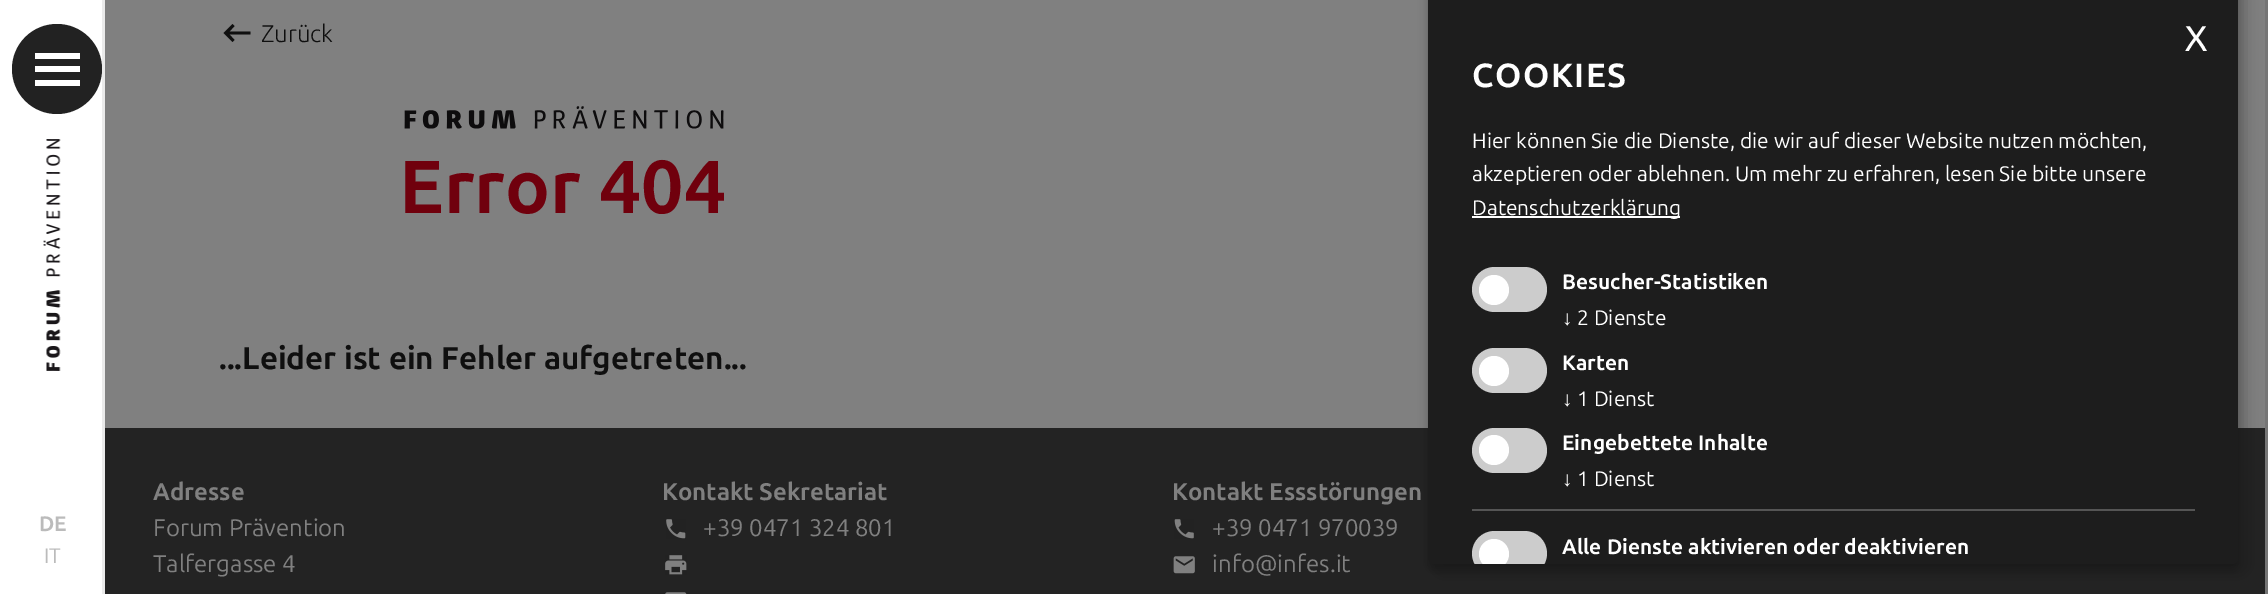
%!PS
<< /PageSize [2268 594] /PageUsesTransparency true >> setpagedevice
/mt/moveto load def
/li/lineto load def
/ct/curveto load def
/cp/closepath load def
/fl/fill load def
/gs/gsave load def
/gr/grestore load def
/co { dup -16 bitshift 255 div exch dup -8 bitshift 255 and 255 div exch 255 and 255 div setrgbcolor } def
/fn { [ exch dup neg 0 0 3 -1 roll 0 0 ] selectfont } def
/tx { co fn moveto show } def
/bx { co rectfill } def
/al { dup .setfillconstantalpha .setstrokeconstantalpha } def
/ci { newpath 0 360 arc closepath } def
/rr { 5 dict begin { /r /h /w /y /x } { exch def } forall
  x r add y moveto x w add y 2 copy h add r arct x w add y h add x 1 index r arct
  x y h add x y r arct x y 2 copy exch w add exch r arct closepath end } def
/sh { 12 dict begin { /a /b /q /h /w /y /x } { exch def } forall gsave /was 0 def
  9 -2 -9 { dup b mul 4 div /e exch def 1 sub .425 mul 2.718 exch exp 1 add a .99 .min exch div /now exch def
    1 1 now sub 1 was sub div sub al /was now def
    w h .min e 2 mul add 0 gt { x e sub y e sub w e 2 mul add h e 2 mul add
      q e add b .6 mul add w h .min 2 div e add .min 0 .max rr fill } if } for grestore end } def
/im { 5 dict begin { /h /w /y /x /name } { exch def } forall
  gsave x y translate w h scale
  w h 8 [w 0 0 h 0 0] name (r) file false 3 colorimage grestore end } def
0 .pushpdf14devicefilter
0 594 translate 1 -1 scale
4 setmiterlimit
0 0 2268 594 16#808080 bx
2265 0 3 594 16#757575 bx
16#0F0F0F co
250.5 31.5 mt 250.5 34.5 li 229.5 34.5 li 234.5 40 li 232.5 42 li 223.5 33 li 232.5 24 li 234.5 26 li 229.5 31.5 li cp fl
(media/1.raw) 404 106 320 23 im
0 0 102 594 16#FFFFFF bx
16#222222 co
57 69 45 ci fl
35 53 45 6 16#FFFFFF bx
35 66 45 6 16#FFFFFF bx
35 80 45 6 16#FFFFFF bx
(media/2.raw) 43 139 18 232 im
102 0 3 594 16#EAEAEA bx
105 428 2160 166 16#232323 bx
(media/3.raw) 666 519 20 20 im
(media/4.raw) 665 555 22 20 im
(media/5.raw) 665 592 22 2 im
(media/6.raw) 1174 519 20 20 im
(media/7.raw) 1173 556 22 18 im
16#000000 co
1436 -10 810 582 6 7.5 .19 sh
1428 -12 810 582 6 4.5 .2 sh
16#1D1D1D co
1428 0 mt 2238 0 li 2238 558 li 2238 561.5 2235.5 564 2232 564 ct 1434 564 li 1430.5 564 1428 561.5 1428 558 ct cp fl
1472 216 208 2 16#FFFFFF bx
16#CCCCCC co
1472 267 75 45 22.5 rr fl
16#FFFFFF co
1494 290 15 ci fl
16#CCCCCC co
1472 348 75 45 22.5 rr fl
16#FFFFFF co
1494 371 15 ci fl
16#CCCCCC co
1472 428 75 45 22.5 rr fl
16#FFFFFF co
1494 450 15 ci fl
1472 509 723 2 16#555555 bx
gs
1428 -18 810 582 6 rr clip newpath
16#CCCCCC co
1472 531 75 45 22.5 rr fl
16#FFFFFF co
1494 554 15 ci fl
gr
(Zurück) 261 42 /Ubuntu-Light 24 16#0F0F0F tx
(Error 404) 399 213 /Ubuntu-Bold 75 16#70000D tx
(...Leider ist ein Fehler aufgetreten...) 219 369 /Ubuntu-Bold 31.5 16#0F0F0F tx
(DE) 39 531 /Ubuntu-Bold 21 16#BBBBBB tx
(IT) 44 563 /Ubuntu-Regular 21 16#BBBBBB tx
(Adresse) 153 500 /Ubuntu-Bold 24 16#808080 tx
(Forum Prävention) 153 536 /Ubuntu-Regular 24 16#808080 tx
(Talfergasse 4) 153 572 /Ubuntu-Regular 24 16#808080 tx
(Kontakt Sekretariat) 662 500 /Ubuntu-Bold 24 16#808080 tx
(+39 0471 324 801) 703 536 /Ubuntu-Regular 24 16#808080 tx
(Kontakt Essstörungen) 1172 500 /Ubuntu-Bold 24 16#808080 tx
(+39 0471 970039) 1212 536 /Ubuntu-Regular 24 16#808080 tx
(info@infes.it) 1212 572 /Ubuntu-Regular 24 16#808080 tx
(x) 2184 51 /Ubuntu-Regular 48 16#FFFFFF tx
/Ubuntu-Bold 33.5 fn
1472 87 mt 1.5 0 (COOKIES) ashow
(Hier können Sie die Dienste, die wir auf dieser Website nutzen möchten,) 1472 148 /Ubuntu-Regular 21 16#FFFFFF tx
(akzeptieren oder ablehnen. Um mehr zu erfahren, lesen Sie bitte unsere) 1472 181 /Ubuntu-Regular 21 16#FFFFFF tx
(Datenschutzerklärung) 1472 215 /Ubuntu-Regular 21 16#FFFFFF tx
(Besucher-Statistiken) 1562 289 /Ubuntu-Bold 21 16#FFFFFF tx
(↓) 1562 325 /LiberationSans-Regular 21 16#FFFFFF tx
(2 Dienste) 1577 325 /Ubuntu-Regular 21 16#FFFFFF tx
(Karten) 1562 370 /Ubuntu-Bold 21 16#FFFFFF tx
(↓) 1562 406 /LiberationSans-Regular 21 16#FFFFFF tx
(1 Dienst) 1577 406 /Ubuntu-Regular 21 16#FFFFFF tx
(Eingebettete Inhalte) 1562 450 /Ubuntu-Bold 21 16#FFFFFF tx
(↓) 1562 486 /LiberationSans-Regular 21 16#FFFFFF tx
(1 Dienst) 1577 486 /Ubuntu-Regular 21 16#FFFFFF tx
(Alle Dienste aktivieren oder deaktivieren) 1562 554 /Ubuntu-Bold 21 16#FFFFFF tx
.poppdf14devicefilter showpage
